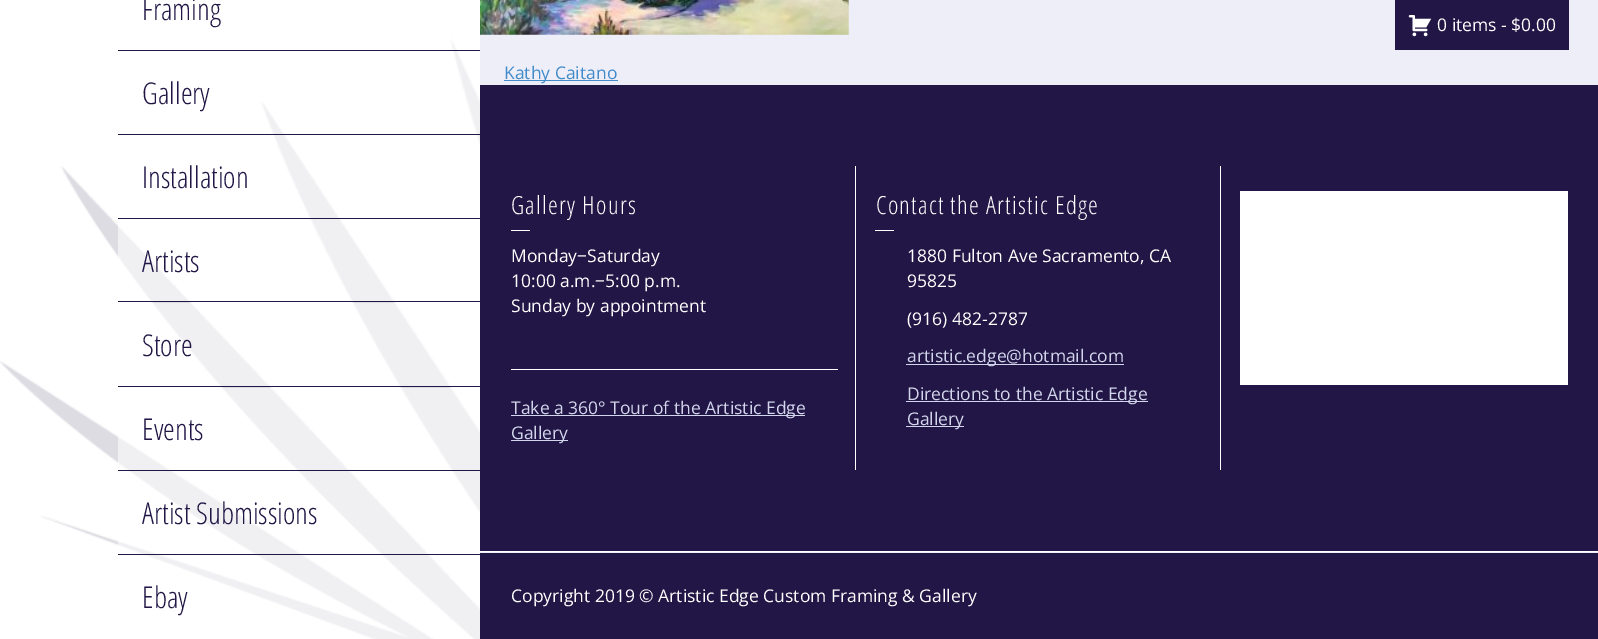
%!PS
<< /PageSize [1598 639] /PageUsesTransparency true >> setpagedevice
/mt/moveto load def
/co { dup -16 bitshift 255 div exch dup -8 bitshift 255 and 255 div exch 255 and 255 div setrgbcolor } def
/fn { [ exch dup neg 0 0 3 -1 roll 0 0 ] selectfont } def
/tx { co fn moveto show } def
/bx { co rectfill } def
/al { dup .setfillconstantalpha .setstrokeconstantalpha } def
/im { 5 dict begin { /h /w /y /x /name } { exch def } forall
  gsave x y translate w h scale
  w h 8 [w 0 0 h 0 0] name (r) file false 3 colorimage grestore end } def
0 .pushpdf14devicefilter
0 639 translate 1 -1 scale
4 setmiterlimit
0 0 1598 639 16#EDEEF8 bx
(media/1.raw) 0 0 480 639 im
0.55 al
450 39 7 11 16#FFFFFF bx
1 al
118 50 362 1 16#211645 bx
0.55 al
261 51 219 83 16#FFFFFF bx
1 al
118 134 362 1 16#211645 bx
0.55 al
273 135 207 83 16#FFFFFF bx
1 al
118 218 362 1 16#211645 bx
0.55 al
118 219 276 82 16#FFFFFF bx
1 al
118 301 362 1 16#211645 bx
0.55 al
152 303 299 83 16#FFFFFF bx
1 al
118 386 362 1 16#211645 bx
0.55 al
118 388 362 82 16#FFFFFF bx
1 al
118 470 362 1 16#211645 bx
0.55 al
118 471 362 83 16#FFFFFF bx
1 al
118 554 362 1 16#211645 bx
0.55 al
144 555 336 84 16#FFFFFF bx
1 al
(media/2.raw) 480 0 369 35 im
504 80 114 1 16#428BCA bx
480 85 1118 466 16#211645 bx
511 230 19 1 16#FFFFFF bx
511 369 327 1 16#FFFFFF bx
511 415 294 1 16#D2D5EC bx
511 440 57 1 16#D2D5EC bx
855 166 1 304 16#FFFFFF bx
875 230 19 1 16#FFFFFF bx
906 364 218 1 16#D2D5EC bx
906 401 242 1 16#D2D5EC bx
906 426 58 1 16#D2D5EC bx
1220 166 1 304 16#FFFFFF bx
1240 191 328 194 16#FFFFFF bx
480 553 1118 86 16#211645 bx
480 551 1118 1 16#FFFFFF bx
1395 0 174 50 16#211645 bx
(media/3.raw) 1408 15 24 22 im
(Framing) 142 20 /OpenSansCondensed-Light 30 16#211645 tx
(Gallery) 142 104 /OpenSansCondensed-Light 30 16#211645 tx
(Installation) 142 188 /OpenSansCondensed-Light 30 16#211645 tx
(Artists) 142 272 /OpenSansCondensed-Light 30 16#211645 tx
(Store) 142 356 /OpenSansCondensed-Light 30 16#211645 tx
(Events) 142 440 /OpenSansCondensed-Light 30 16#211645 tx
(Artist Submissions) 142 524 /OpenSansCondensed-Light 30 16#211645 tx
(Ebay) 142 608 /OpenSansCondensed-Light 30 16#211645 tx
(Kathy Caitano) 504 79 /OpenSans-Regular 17.5 16#428BCA tx
/OpenSansCondensed-Light 25 fn
16#FFFFFF co
511 214 mt 1.25 0 (Gallery Hours) ashow
(Monday−Saturday) 511 262 /OpenSans-Regular 17.5 16#FFFFFF tx
(10:00 a.m.−5:00 p.m.) 511 287 /OpenSans-Regular 17.5 16#FFFFFF tx
(Sunday by appointment) 511 312 /OpenSans-Regular 17.5 16#FFFFFF tx
(Take a 360° Tour of the Artistic Edge) 511 414 /OpenSans-Regular 17.5 16#D2D5EC tx
(Gallery) 511 439 /OpenSans-Regular 17.5 16#D2D5EC tx
/OpenSansCondensed-Light 25 fn
16#FFFFFF co
876 214 mt 1.25 0 (Contact the Artistic Edge) ashow
(1880 Fulton Ave Sacramento, CA) 907 262 /OpenSans-Regular 17.5 16#FFFFFF tx
(95825) 907 287 /OpenSans-Regular 17.5 16#FFFFFF tx
(\(916\) 482-2787) 907 325 /OpenSans-Regular 17.5 16#FFFFFF tx
(artistic.edge@hotmail.com) 907 362 /OpenSans-Regular 17.5 16#D2D5EC tx
(Directions to the Artistic Edge) 907 400 /OpenSans-Regular 17.5 16#D2D5EC tx
(Gallery) 907 425 /OpenSans-Regular 17.5 16#D2D5EC tx
(Copyright 2019 © Artistic Edge Custom Framing & Gallery) 511 602 /OpenSans-Regular 17.5 16#FFFFFF tx
(0 items - $0.00) 1437 31 /OpenSans-Regular 17.5 16#FFFFFF tx
.poppdf14devicefilter showpage
